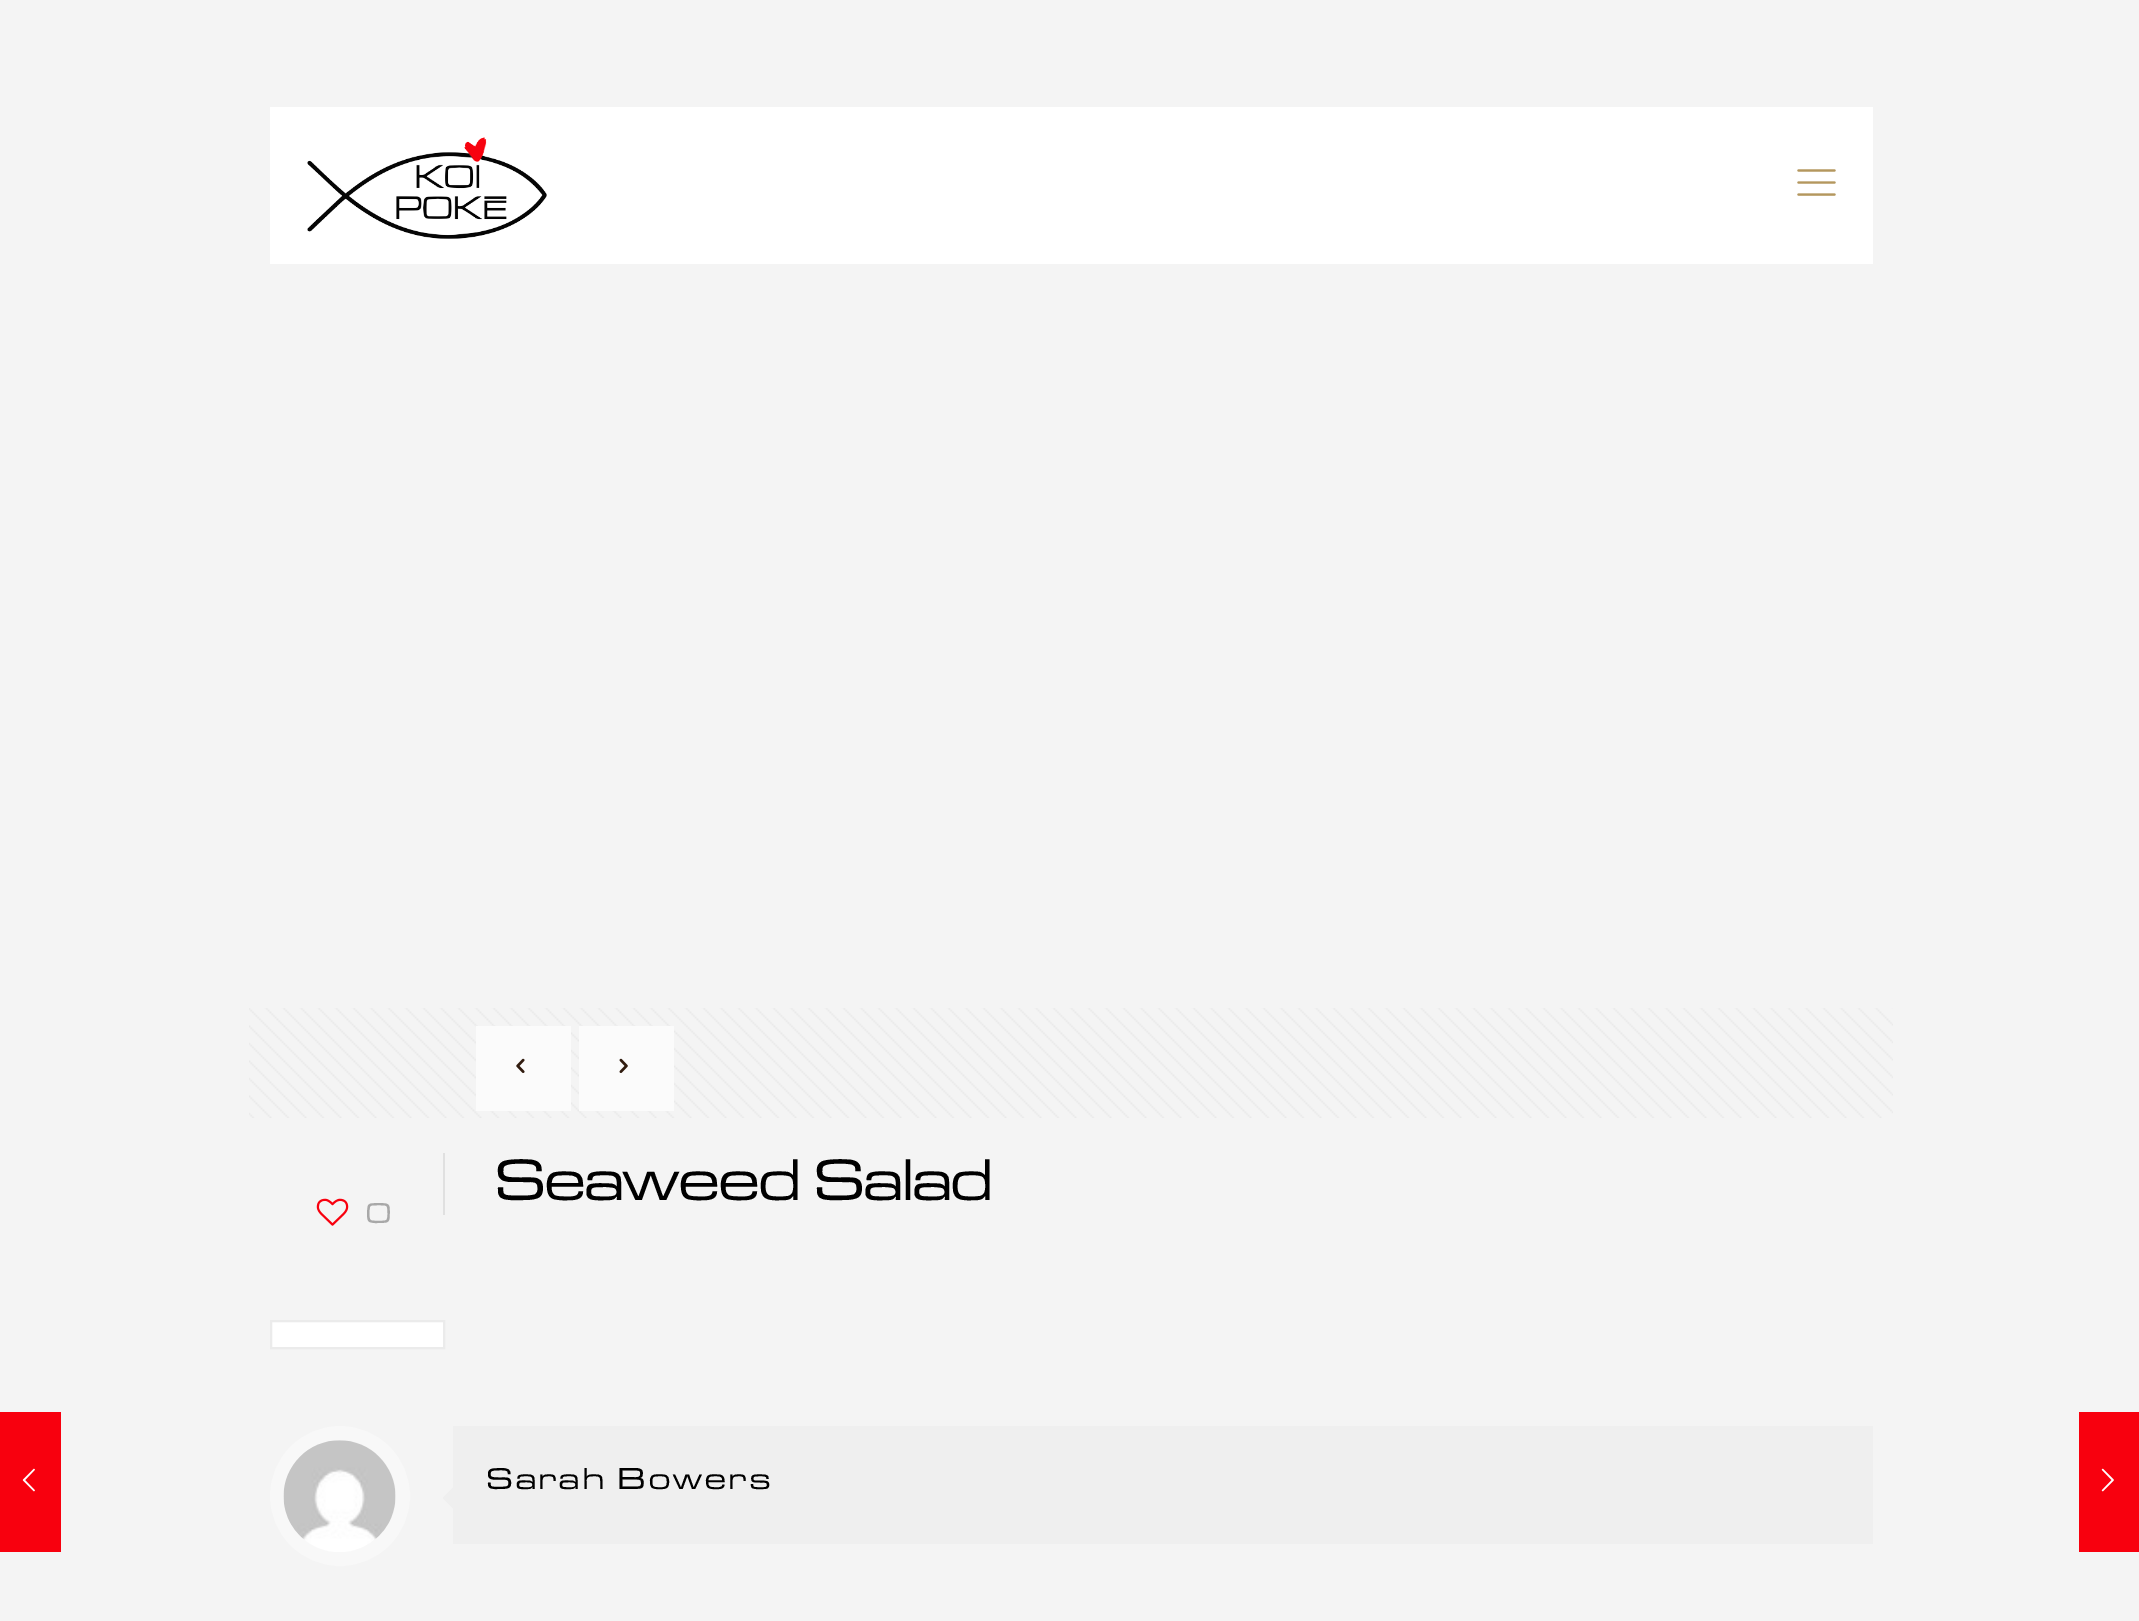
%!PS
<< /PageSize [2139 1621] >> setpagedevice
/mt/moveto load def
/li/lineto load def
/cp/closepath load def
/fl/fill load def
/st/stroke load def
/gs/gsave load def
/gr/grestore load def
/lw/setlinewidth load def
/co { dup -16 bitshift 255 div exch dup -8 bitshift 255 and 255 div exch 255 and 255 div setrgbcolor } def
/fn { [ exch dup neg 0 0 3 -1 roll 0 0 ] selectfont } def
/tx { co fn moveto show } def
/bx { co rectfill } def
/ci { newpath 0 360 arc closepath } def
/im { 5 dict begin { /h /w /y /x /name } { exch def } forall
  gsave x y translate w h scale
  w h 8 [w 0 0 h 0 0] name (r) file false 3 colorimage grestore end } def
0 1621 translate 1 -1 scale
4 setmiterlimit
0 0 2139 1621 16#F4F4F4 bx
0 1412 61 140 16#F8000E bx
(media/1.raw) 22 1468 13 24 im
270 107 1603 157 16#FFFFFF bx
(media/2.raw) 307 137 240 102 im
(media/3.raw) 1797 169 39 27 im
(media/4.raw) 249 1008 1644 110 im
476 1026 95 85 16#FBFBFB bx
(media/5.raw) 516 1058 9 15 im
579 1026 95 85 16#FBFBFB bx
(media/6.raw) 619 1058 9 15 im
443 1153 2 62 16#E0E0E0 bx
(media/7.raw) 316 1198 33 28 im
16#FFFFFF co
271 1321 mt 444 1321 li 444 1348 li 271 1348 li cp gs fl gr
16#EBEBEB co
2 lw
st
16#F8F8F8 co
14 lw
340 1496 63 ci st
(media/8.raw) 283 1440 113 112 im
453 1426 1420 118 16#EFEFEF bx
453 1487.5 mt 453 1508.5 li 443 1498 li cp fl
2079 1412 60 140 16#F8000E bx
(media/9.raw) 2101 1468 13 24 im
(Seaweed Salad) 496 1200 /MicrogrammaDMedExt-Regular 61.25 16#000000 tx
/MicrogrammaDMedExt-Regular 30 fn
16#A8A8A8 co
366 1223 mt 3.5 0 (0) ashow
/MicrogrammaDMedExt-Regular 31.5 fn
16#000000 co
487 1489 mt 3.5 0 (Sarah Bowers) ashow
showpage
